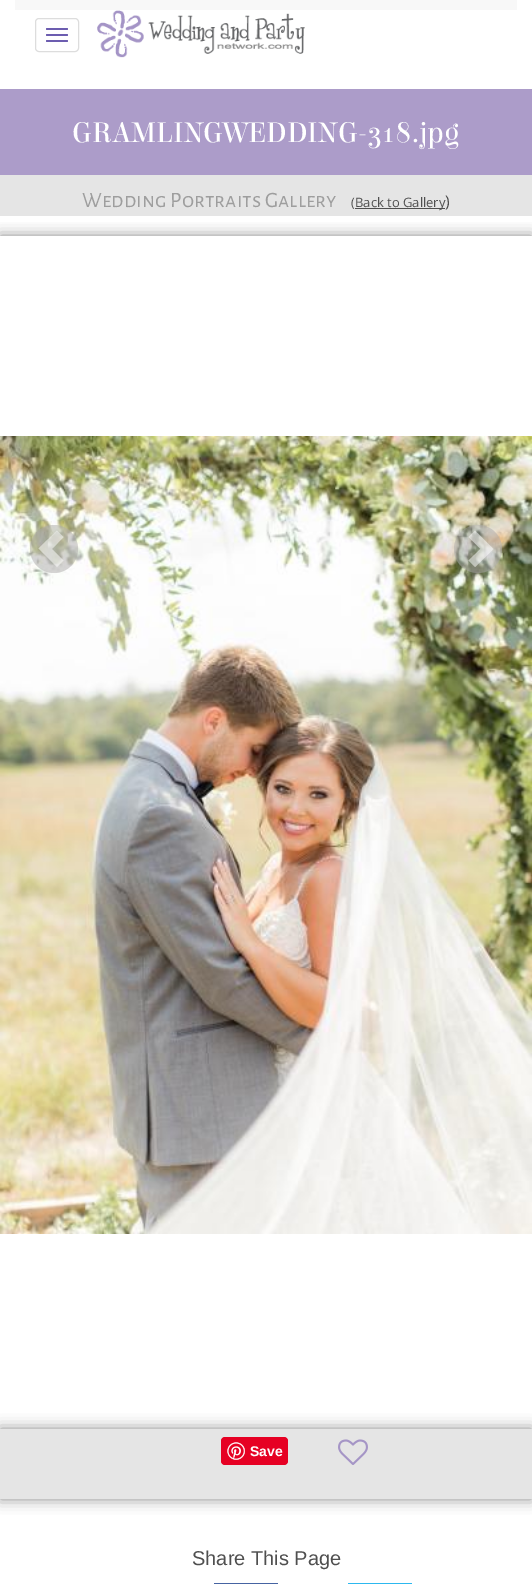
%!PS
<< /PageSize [532 1584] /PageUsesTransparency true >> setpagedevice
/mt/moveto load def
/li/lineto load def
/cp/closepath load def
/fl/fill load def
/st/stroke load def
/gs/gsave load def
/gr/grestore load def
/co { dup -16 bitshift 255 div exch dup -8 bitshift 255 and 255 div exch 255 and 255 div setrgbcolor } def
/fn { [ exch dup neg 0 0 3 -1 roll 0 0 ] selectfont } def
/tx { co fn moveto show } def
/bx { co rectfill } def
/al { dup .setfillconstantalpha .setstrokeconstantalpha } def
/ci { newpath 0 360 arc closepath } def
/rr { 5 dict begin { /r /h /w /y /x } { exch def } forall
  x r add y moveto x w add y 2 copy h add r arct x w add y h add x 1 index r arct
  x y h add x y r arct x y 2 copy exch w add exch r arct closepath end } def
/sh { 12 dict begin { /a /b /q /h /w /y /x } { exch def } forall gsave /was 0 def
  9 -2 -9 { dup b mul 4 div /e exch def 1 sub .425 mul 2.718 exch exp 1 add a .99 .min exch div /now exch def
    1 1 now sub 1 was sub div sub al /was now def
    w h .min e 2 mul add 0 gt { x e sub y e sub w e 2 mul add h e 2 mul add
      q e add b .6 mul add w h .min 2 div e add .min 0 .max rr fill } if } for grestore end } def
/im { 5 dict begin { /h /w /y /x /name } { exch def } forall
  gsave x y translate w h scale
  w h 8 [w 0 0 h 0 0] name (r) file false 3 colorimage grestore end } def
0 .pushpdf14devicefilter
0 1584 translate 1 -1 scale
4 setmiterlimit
0 0 532 1584 16#FFFFFF bx
15 0 502 10 16#F8F8F8 bx
16#DDDDDD co
35.5 18.5 43 33 3.5 rr st
16#6C5DB0 co
46 28 22 2 1 rr fl
46 34 22 2 1 rr fl
46 40 22 2 1 rr fl
(media/1.raw) 97 10 208 48 im
0 89 532 86 16#AC9CC9 bx
0 175 532 41 16#E5E5E5 bx
355 208 90 1 16#4F4F4F bx
gs
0 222 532 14 rectclip
16#888888 co
0 236 532 1193 0 7 1 sh
gr
(media/2.raw) 0 436 532 798 im
0.5 al
16#ADAAAA co
54 549 24 ci fl
16#FFFFFF co
63.5 537 mt 52 549 li 63.5 560.5 li 57 567 li 38.5 548.5 li 57 530.5 li cp fl
16#ADAAAA co
478 549 24 ci fl
16#FFFFFF co
493.5 549 mt 475 567 li 468.5 560.5 li 480.5 549 li 468.5 537 li 475 530.5 li cp fl
1 al
16#888888 co
0 1429 532 70 0 7 1 sh
0 1429 532 70 16#E5E5E5 bx
16#E60023 co
221 1437 67 28 4 rr fl
(media/3.raw) 227 1442 18 18 im
(media/4.raw) 338 1439 30 26 im
214 1583 64 1 16#4664A2 bx
348 1583 64 1 16#2DB8EF bx
(GRAMLINGWEDDING-318.jpg) 72 142 /Elsie-Regular 30 16#FFFFFF tx
(Wedding Portraits Gallery) 82 207 /AlegreyaSansSC-Regular 22 16#9E9E9E tx
(\() 351 207 /OpenSans-Regular 13 16#4F4F4F tx
(Back to Gallery) 355 207 /OpenSans-Regular 13 16#4F4F4F tx
(\)) 445 207 /OpenSans-Regular 16 16#4F4F4F tx
(Save) 250 1456 /LiberationSans-Bold 14 16#FFFFFF tx
(Share This Page) 192 1565 /LiberationSans-Regular 20 16#4F4F4F tx
.poppdf14devicefilter showpage
